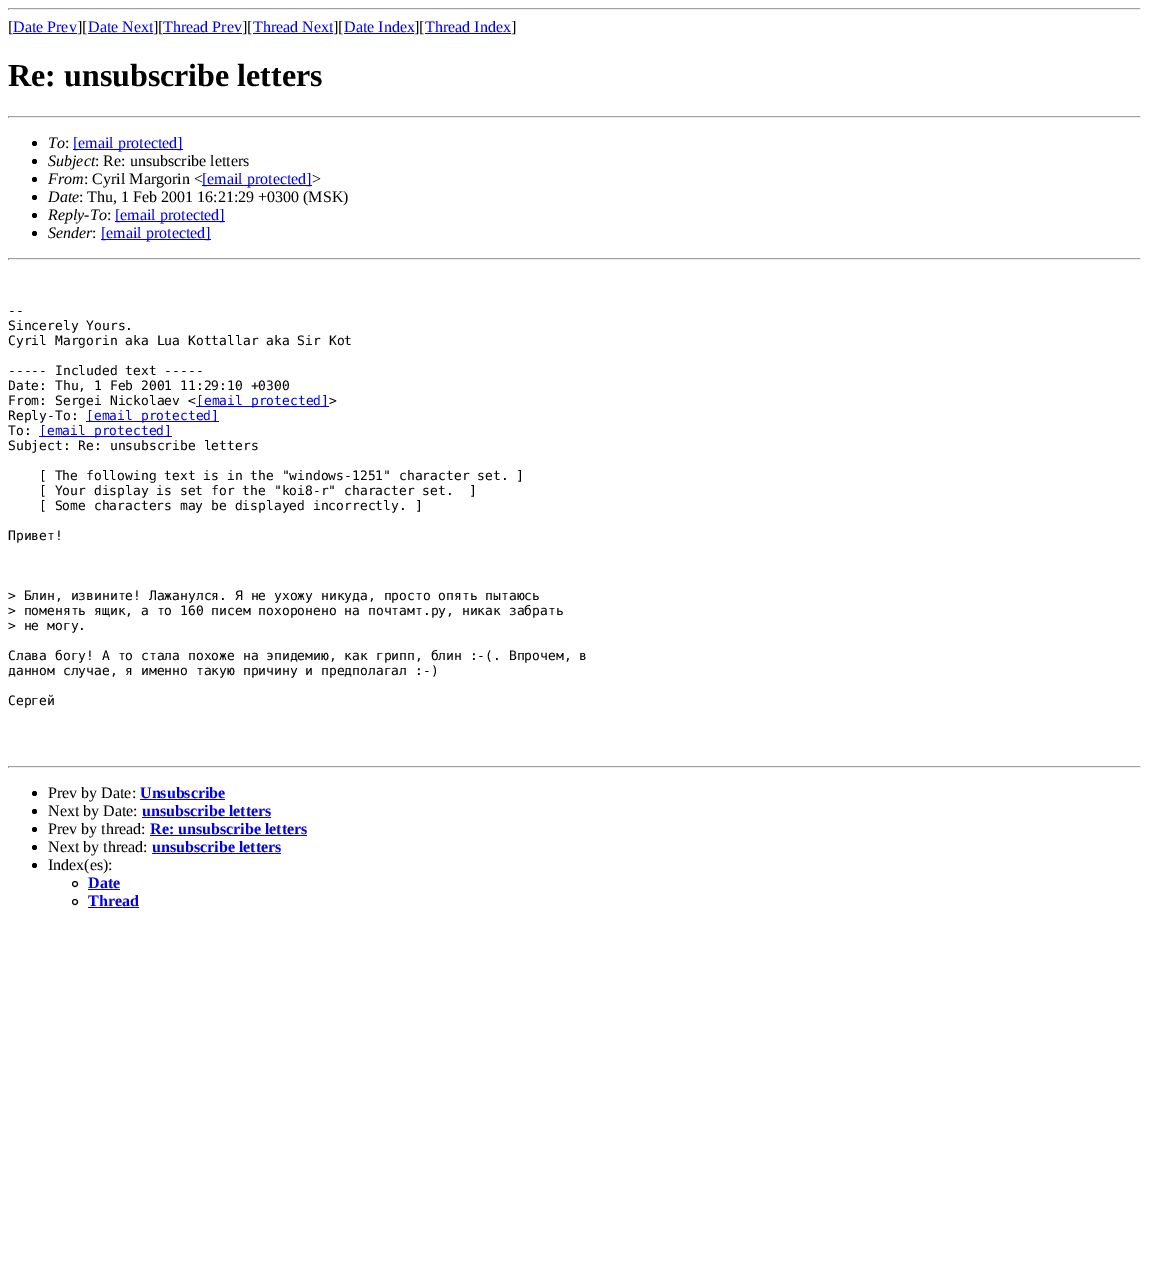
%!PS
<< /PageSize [1149 1267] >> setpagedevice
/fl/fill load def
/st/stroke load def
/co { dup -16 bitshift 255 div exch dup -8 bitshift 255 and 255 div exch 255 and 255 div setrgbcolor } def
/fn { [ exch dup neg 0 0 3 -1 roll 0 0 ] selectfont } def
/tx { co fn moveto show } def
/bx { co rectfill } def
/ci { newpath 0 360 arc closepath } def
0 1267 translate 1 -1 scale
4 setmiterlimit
0 0 1149 1267 16#FFFFFF bx
8 8 1133 1 16#9F9F9F bx
1140 8 1 2 16#EEEEEE bx
8 9 1133 1 16#EEEEEE bx
8 8 1 2 16#9F9F9F bx
13 33 64 1 16#0000EE bx
88 33 65 1 16#0000EE bx
163 33 79 1 16#0000EE bx
253 33 80 1 16#0000EE bx
344 33 70 1 16#0000EE bx
425 33 86 1 16#0000EE bx
8 116 1133 1 16#9F9F9F bx
1140 116 1 2 16#EEEEEE bx
8 117 1133 1 16#EEEEEE bx
8 116 1 2 16#9F9F9F bx
16#000000 co
34.5 143.5 2.5 ci fl
73 149 110 1 16#0000EE bx
16#000000 co
34.5 161.5 2.5 ci fl
34.5 179.5 2.5 ci fl
202 185 110 1 16#0000EE bx
16#000000 co
34.5 197.5 2.5 ci fl
34.5 215.5 2.5 ci fl
115 221 110 1 16#0000EE bx
16#000000 co
34.5 233.5 2.5 ci fl
101 239 110 1 16#0000EE bx
8 258 1133 1 16#9F9F9F bx
1140 258 1 2 16#EEEEEE bx
8 259 1133 1 16#EEEEEE bx
8 258 1 2 16#9F9F9F bx
196 406 133 1 16#0000EE bx
86 421 133 1 16#0000EE bx
39 436 133 1 16#0000EE bx
8 766 1133 1 16#9F9F9F bx
1140 766 1 2 16#EEEEEE bx
8 767 1133 1 16#EEEEEE bx
8 766 1 2 16#9F9F9F bx
16#000000 co
34.5 793.5 2.5 ci fl
140 799 85 1 16#0000EE bx
16#000000 co
34.5 811.5 2.5 ci fl
142 817 129 1 16#0000EE bx
16#000000 co
34.5 829.5 2.5 ci fl
150 835 157 1 16#0000EE bx
16#000000 co
34.5 847.5 2.5 ci fl
152 853 129 1 16#0000EE bx
16#000000 co
34.5 865.5 2.5 ci fl
75 884 2.5 ci st
88 889 32 1 16#0000EE bx
16#000000 co
75 902 2.5 ci st
88 907 51 1 16#0000EE bx
([) 8 32 /LiberationSerif-Regular 16 16#000000 tx
(Date Prev) 13 32 /LiberationSerif-Regular 16 16#0000EE tx
(][) 77 32 /LiberationSerif-Regular 16 16#000000 tx
(Date Next) 88 32 /LiberationSerif-Regular 16 16#0000EE tx
(][) 153 32 /LiberationSerif-Regular 16 16#000000 tx
(Thread Prev) 163 32 /LiberationSerif-Regular 16 16#0000EE tx
(][) 242 32 /LiberationSerif-Regular 16 16#000000 tx
(Thread Next) 253 32 /LiberationSerif-Regular 16 16#0000EE tx
(][) 333 32 /LiberationSerif-Regular 16 16#000000 tx
(Date Index) 344 32 /LiberationSerif-Regular 16 16#0000EE tx
(][) 414 32 /LiberationSerif-Regular 16 16#000000 tx
(Thread Index) 425 32 /LiberationSerif-Regular 16 16#0000EE tx
(]) 511 32 /LiberationSerif-Regular 16 16#000000 tx
(Re: unsubscribe letters) 8 86 /LiberationSerif-Bold 32 16#000000 tx
(To) 48 148 /LiberationSerif-Italic 16 16#000000 tx
(:) 65 148 /LiberationSerif-Regular 16 16#000000 tx
([email protected]) 73 148 /LiberationSerif-Regular 16 16#0000EE tx
(Subject) 48 166 /LiberationSerif-Italic 16 16#000000 tx
(: Re: unsubscribe letters) 95 166 /LiberationSerif-Regular 16 16#000000 tx
(From) 48 184 /LiberationSerif-Italic 16 16#000000 tx
(: Cyril Margorin <) 84 184 /LiberationSerif-Regular 16 16#000000 tx
([email protected]) 202 184 /LiberationSerif-Regular 16 16#0000EE tx
(>) 312 184 /LiberationSerif-Regular 16 16#000000 tx
(Date) 48 202 /LiberationSerif-Italic 16 16#000000 tx
(: Thu, 1 Feb 2001 16:21:29 +0300 \(MSK\)) 79 202 /LiberationSerif-Regular 16 16#000000 tx
(Reply-To) 48 220 /LiberationSerif-Italic 16 16#000000 tx
(:) 107 220 /LiberationSerif-Regular 16 16#000000 tx
([email protected]) 115 220 /LiberationSerif-Regular 16 16#0000EE tx
(Sender) 48 238 /LiberationSerif-Italic 16 16#000000 tx
(:) 92 238 /LiberationSerif-Regular 16 16#000000 tx
([email protected]) 101 238 /LiberationSerif-Regular 16 16#0000EE tx
(--) 8 315 /DejaVuSansMono-Regular 13 16#000000 tx
(Sincerely Yours.) 8 330 /DejaVuSansMono-Regular 13 16#000000 tx
(Cyril Margorin aka Lua Kottallar aka Sir Kot) 8 345 /DejaVuSansMono-Regular 13 16#000000 tx
(----- Included text -----) 8 375 /DejaVuSansMono-Regular 13 16#000000 tx
(Date: Thu, 1 Feb 2001 11:29:10 +0300) 8 390 /DejaVuSansMono-Regular 13 16#000000 tx
(From: Sergei Nickolaev <) 8 405 /DejaVuSansMono-Regular 13 16#000000 tx
([email protected]) 196 405 /DejaVuSansMono-Regular 13 16#0000EE tx
(>) 329 405 /DejaVuSansMono-Regular 13 16#000000 tx
(Reply-To:) 8 420 /DejaVuSansMono-Regular 13 16#000000 tx
([email protected]) 86 420 /DejaVuSansMono-Regular 13 16#0000EE tx
(To:) 8 435 /DejaVuSansMono-Regular 13 16#000000 tx
([email protected]) 39 435 /DejaVuSansMono-Regular 13 16#0000EE tx
(Subject: Re: unsubscribe letters) 8 450 /DejaVuSansMono-Regular 13 16#000000 tx
([ The following text is in the "windows-1251" character set. ]) 39 480 /DejaVuSansMono-Regular 13 16#000000 tx
([ Your display is set for the "koi8-r" character set.  ]) 39 495 /DejaVuSansMono-Regular 13 16#000000 tx
([ Some characters may be displayed incorrectly. ]) 39 510 /DejaVuSansMono-Regular 13 16#000000 tx
(Привет!) 8 540 /DejaVuSansMono-Regular 13 16#000000 tx
(> Блин, извините! Лажанулся. Я не ухожу никуда, просто опять пытаюсь) 8 600 /DejaVuSansMono-Regular 13 16#000000 tx
(> поменять ящик, а то 160 писем похоронено на почтамт.ру, никак забрать) 8 615 /DejaVuSansMono-Regular 13 16#000000 tx
(> не могу.) 8 630 /DejaVuSansMono-Regular 13 16#000000 tx
(Слава богу! А то стала похоже на эпидемию, как грипп, блин :-\(. Впрочем, в) 8 660 /DejaVuSansMono-Regular 13 16#000000 tx
(данном случае, я именно такую причину и предполагал :-\)) 8 675 /DejaVuSansMono-Regular 13 16#000000 tx
(Сергей) 8 705 /DejaVuSansMono-Regular 13 16#000000 tx
(Prev by Date:) 48 798 /LiberationSerif-Regular 16 16#000000 tx
(Unsubscribe) 140 798 /LiberationSerif-Bold 16 16#0000EE tx
(Next by Date:) 48 816 /LiberationSerif-Regular 16 16#000000 tx
(unsubscribe letters) 142 816 /LiberationSerif-Bold 16 16#0000EE tx
(Prev by thread:) 48 834 /LiberationSerif-Regular 16 16#000000 tx
(Re: unsubscribe letters) 150 834 /LiberationSerif-Bold 16 16#0000EE tx
(Next by thread:) 48 852 /LiberationSerif-Regular 16 16#000000 tx
(unsubscribe letters) 152 852 /LiberationSerif-Bold 16 16#0000EE tx
(Index\(es\):) 48 870 /LiberationSerif-Regular 16 16#000000 tx
(Date) 88 888 /LiberationSerif-Bold 16 16#0000EE tx
(Thread) 88 906 /LiberationSerif-Bold 16 16#0000EE tx
showpage
